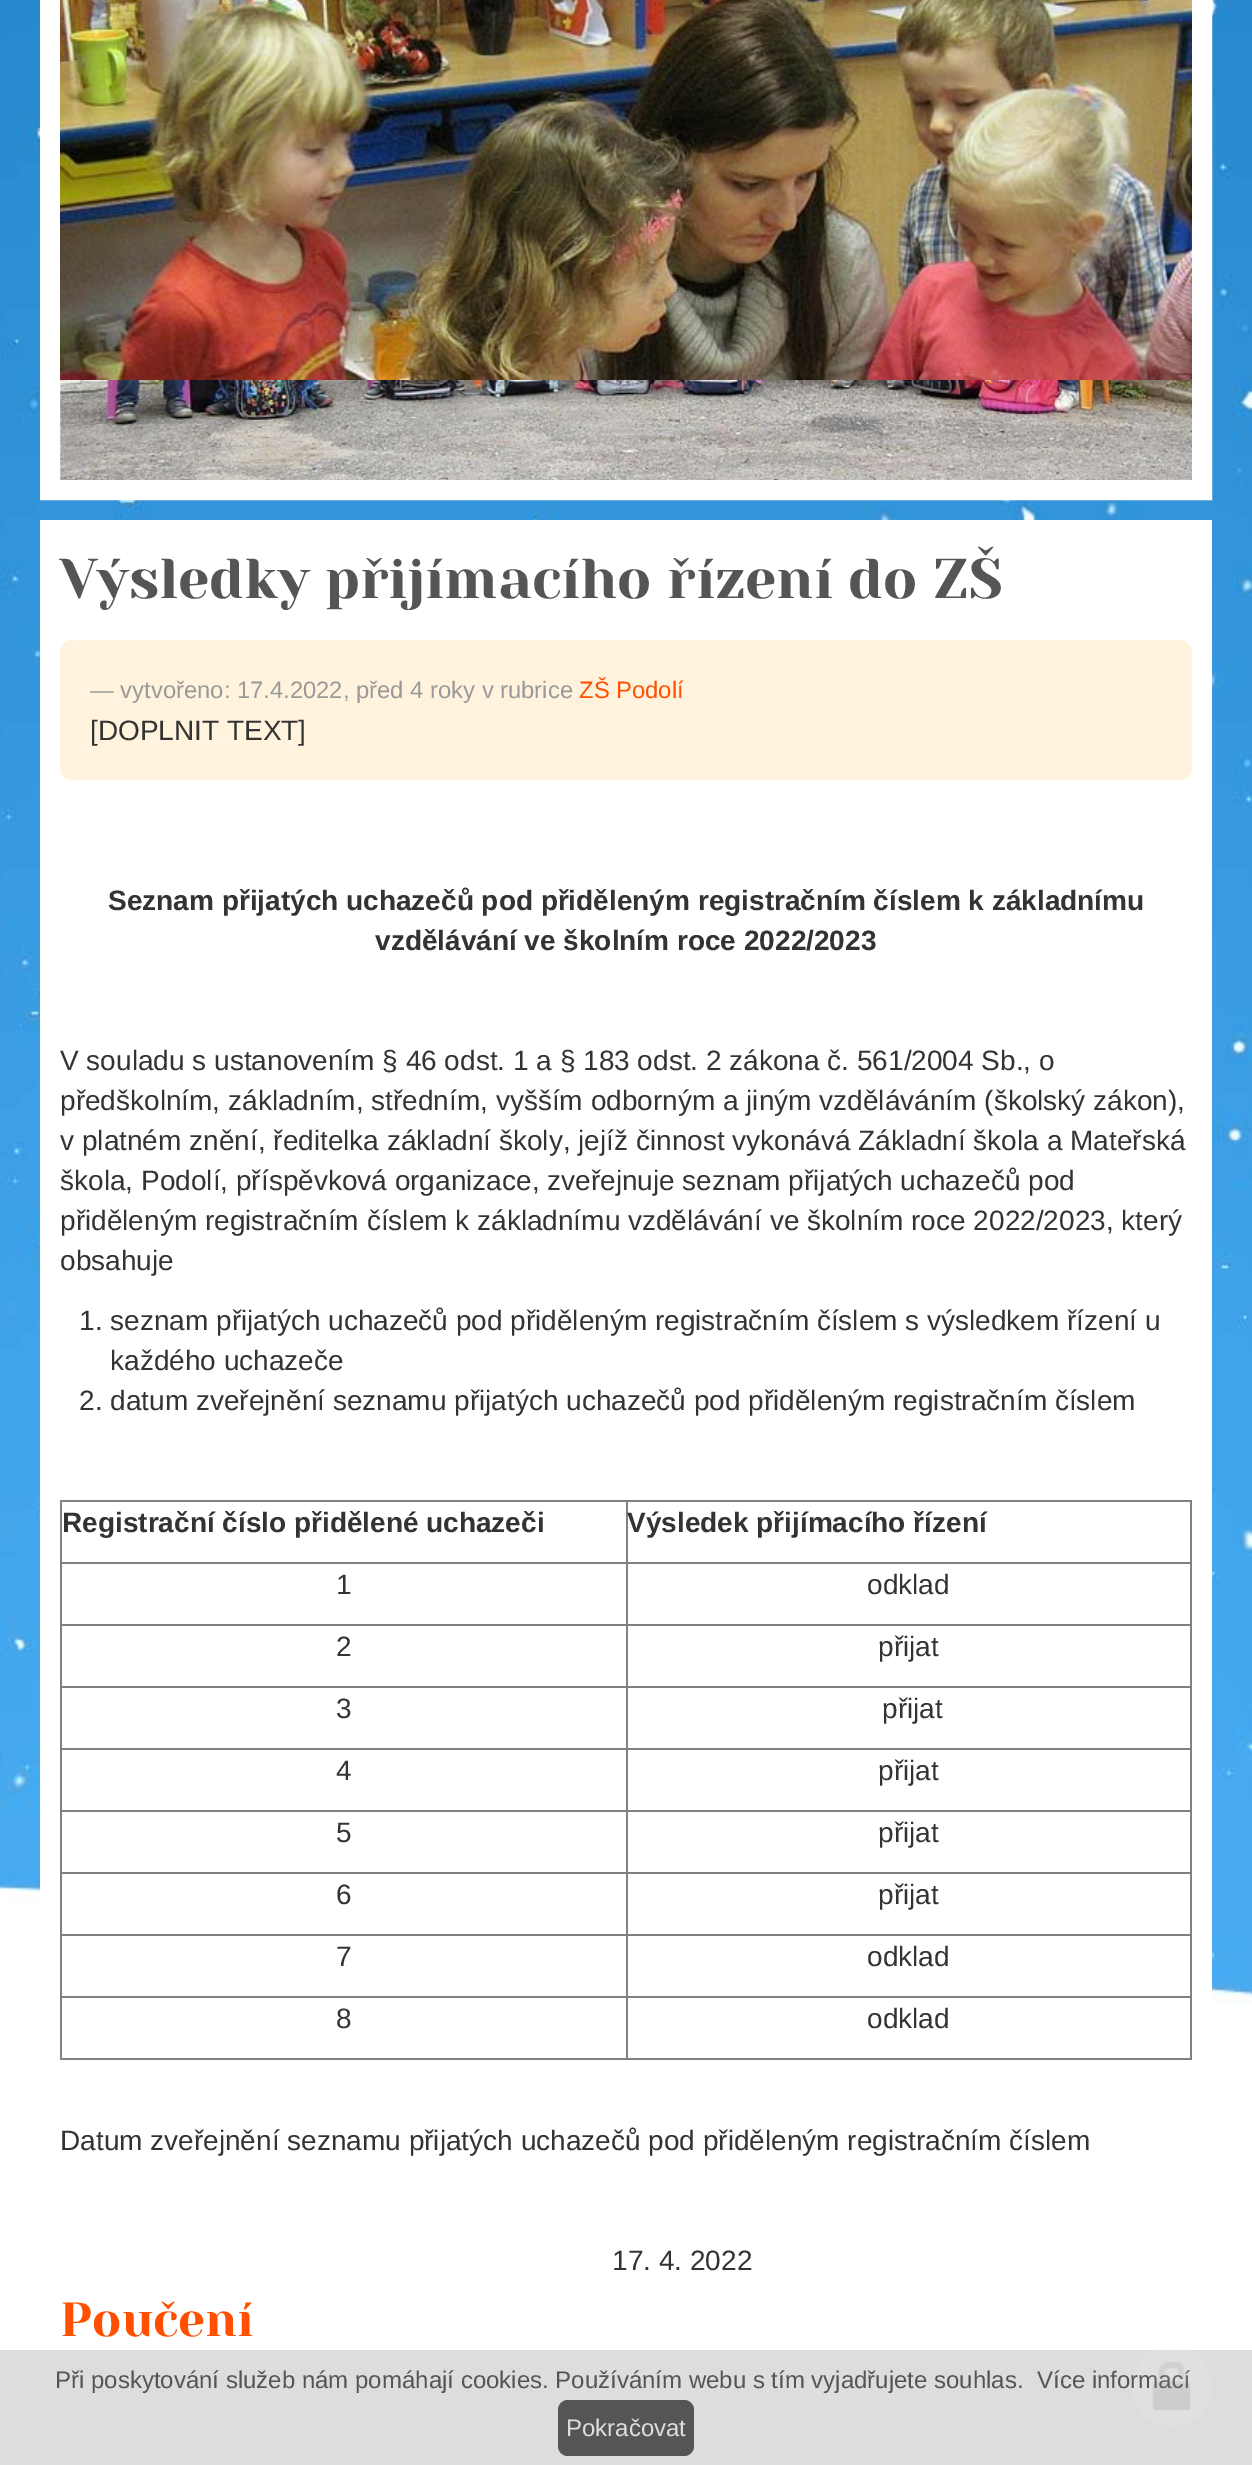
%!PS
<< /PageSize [1252 2465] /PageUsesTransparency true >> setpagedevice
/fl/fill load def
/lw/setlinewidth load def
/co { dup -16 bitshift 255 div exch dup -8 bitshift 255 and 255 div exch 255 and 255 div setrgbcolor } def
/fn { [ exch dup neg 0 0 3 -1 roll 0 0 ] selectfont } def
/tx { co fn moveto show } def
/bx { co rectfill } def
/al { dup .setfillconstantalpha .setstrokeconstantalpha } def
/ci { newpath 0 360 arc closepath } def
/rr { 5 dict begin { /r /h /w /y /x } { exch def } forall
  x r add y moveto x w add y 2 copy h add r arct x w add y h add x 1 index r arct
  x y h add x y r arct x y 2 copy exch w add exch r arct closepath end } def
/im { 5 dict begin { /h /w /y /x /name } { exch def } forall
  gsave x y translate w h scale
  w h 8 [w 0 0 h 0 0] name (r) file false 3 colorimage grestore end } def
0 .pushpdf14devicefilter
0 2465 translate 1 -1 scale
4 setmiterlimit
0 0 1252 2465 16#FFFFFF bx
(media/1.raw) 0 0 1252 2350 im
(media/2.raw) 60 380 1132 100 im
20 lw
50 -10 1152 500 rectstroke
(media/3.raw) 60 0 1132 380 im
40 520 1172 1485 16#FFFFFF bx
16#FFF3DD co
60 640 1132 140 12 rr fl
60 1500 1132 2 16#808080 bx
1190 1500 2 560 16#808080 bx
60 2058 1132 2 16#808080 bx
60 1500 2 560 16#808080 bx
626 1562 566 2 16#808080 bx
626 1624 566 2 16#808080 bx
626 1686 566 2 16#808080 bx
626 1748 566 2 16#808080 bx
626 1810 566 2 16#808080 bx
626 1872 566 2 16#808080 bx
626 1934 566 2 16#808080 bx
626 1996 566 2 16#808080 bx
626 1996 2 64 16#808080 bx
60 1996 568 2 16#808080 bx
626 1934 2 64 16#808080 bx
60 1934 568 2 16#808080 bx
626 1872 2 64 16#808080 bx
60 1872 568 2 16#808080 bx
626 1810 2 64 16#808080 bx
60 1810 568 2 16#808080 bx
626 1748 2 64 16#808080 bx
60 1748 568 2 16#808080 bx
626 1686 2 64 16#808080 bx
60 1686 568 2 16#808080 bx
626 1624 2 64 16#808080 bx
60 1624 568 2 16#808080 bx
626 1562 2 64 16#808080 bx
60 1562 568 2 16#808080 bx
626 1500 2 64 16#808080 bx
0 2350 1252 115 16#DDDDDD bx
0.1 al
16#FFFFFF co
1172 2386 40 ci fl
1 al
16#555555 co
558 2400 136 56 10 rr fl
(Výsledky přijímacího řízení do ZŠ) 60 598 /YesevaOne-Regular 56 16#555555 tx
(— vytvořeno: 17.4.2022, před 4 roky v rubrice) 90 698 /LiberationSans-Regular 23.8 16#999999 tx
(ZŠ Podolí) 579 698 /LiberationSans-Regular 23.8 16#FF5001 tx
([DOPLNIT TEXT]) 90 740 /LiberationSans-Regular 28 16#333333 tx
(Seznam přijatých uchazečů pod přiděleným registračním číslem k základnímu) 108 910 /LiberationSans-Bold 28 16#333333 tx
(vzdělávání ve školním roce 2022/2023) 375 950 /LiberationSans-Bold 28 16#333333 tx
(V souladu s ustanovením § 46 odst. 1 a § 183 odst. 2 zákona č. 561/2004 Sb., o) 60 1070 /LiberationSans-Regular 28 16#333333 tx
(předškolním, základním, středním, vyšším odborným a jiným vzděláváním \(školský zákon\),) 60 1110 /LiberationSans-Regular 28 16#333333 tx
(v platném znění, ředitelka základní školy, jejíž činnost vykonává Základní škola a Mateřská) 60 1150 /LiberationSans-Regular 28 16#333333 tx
(škola, Podolí, příspěvková organizace, zveřejnuje seznam přijatých uchazečů pod) 60 1190 /LiberationSans-Regular 28 16#333333 tx
(přiděleným registračním číslem k základnímu vzdělávání ve školním roce 2022/2023, který) 60 1230 /LiberationSans-Regular 28 16#333333 tx
(obsahuje) 60 1270 /LiberationSans-Regular 28 16#333333 tx
(1. seznam přijatých uchazečů pod přiděleným registračním číslem s výsledkem řízení u) 79 1330 /LiberationSans-Regular 28 16#333333 tx
(každého uchazeče) 110 1370 /LiberationSans-Regular 28 16#333333 tx
(2. datum zveřejnění seznamu přijatých uchazečů pod přiděleným registračním číslem) 79 1410 /LiberationSans-Regular 28 16#333333 tx
(Registrační číslo přidělené uchazeči) 62 1532 /LiberationSans-Bold 28 16#333333 tx
(Výsledek přijímacího řízení) 627 1532 /LiberationSans-Bold 28 16#333333 tx
(1) 336 1594 /LiberationSans-Regular 28 16#333333 tx
(odklad) 867 1594 /LiberationSans-Regular 28 16#333333 tx
(2) 336 1656 /LiberationSans-Regular 28 16#333333 tx
(přijat) 878 1656 /LiberationSans-Regular 28 16#333333 tx
(3) 336 1718 /LiberationSans-Regular 28 16#333333 tx
(přijat) 882 1718 /LiberationSans-Regular 28 16#333333 tx
(4) 336 1780 /LiberationSans-Regular 28 16#333333 tx
(přijat) 878 1780 /LiberationSans-Regular 28 16#333333 tx
(5) 336 1842 /LiberationSans-Regular 28 16#333333 tx
(přijat) 878 1842 /LiberationSans-Regular 28 16#333333 tx
(6) 336 1904 /LiberationSans-Regular 28 16#333333 tx
(přijat) 878 1904 /LiberationSans-Regular 28 16#333333 tx
(7) 336 1966 /LiberationSans-Regular 28 16#333333 tx
(odklad) 867 1966 /LiberationSans-Regular 28 16#333333 tx
(8) 336 2028 /LiberationSans-Regular 28 16#333333 tx
(odklad) 867 2028 /LiberationSans-Regular 28 16#333333 tx
(Datum zveřejnění seznamu přijatých uchazečů pod přiděleným registračním číslem) 60 2150 /LiberationSans-Regular 28 16#333333 tx
(17. 4. 2022) 612 2270 /LiberationSans-Regular 28 16#333333 tx
(Poučení) 60 2336 /YesevaOne-Regular 48 16#FF5001 tx
(Při poskytování služeb nám pomáhají cookies. Používáním webu s tím vyjadřujete souhlas.) 55 2388 /LiberationSans-Regular 24 16#555555 tx
(Více informací) 1037 2388 /LiberationSans-Regular 24 16#555555 tx
(media/4.raw) 1152 2362 39 48 im
(Pokračovat) 566 2436 /LiberationSans-Regular 24 16#DDDDDD tx
.poppdf14devicefilter showpage
